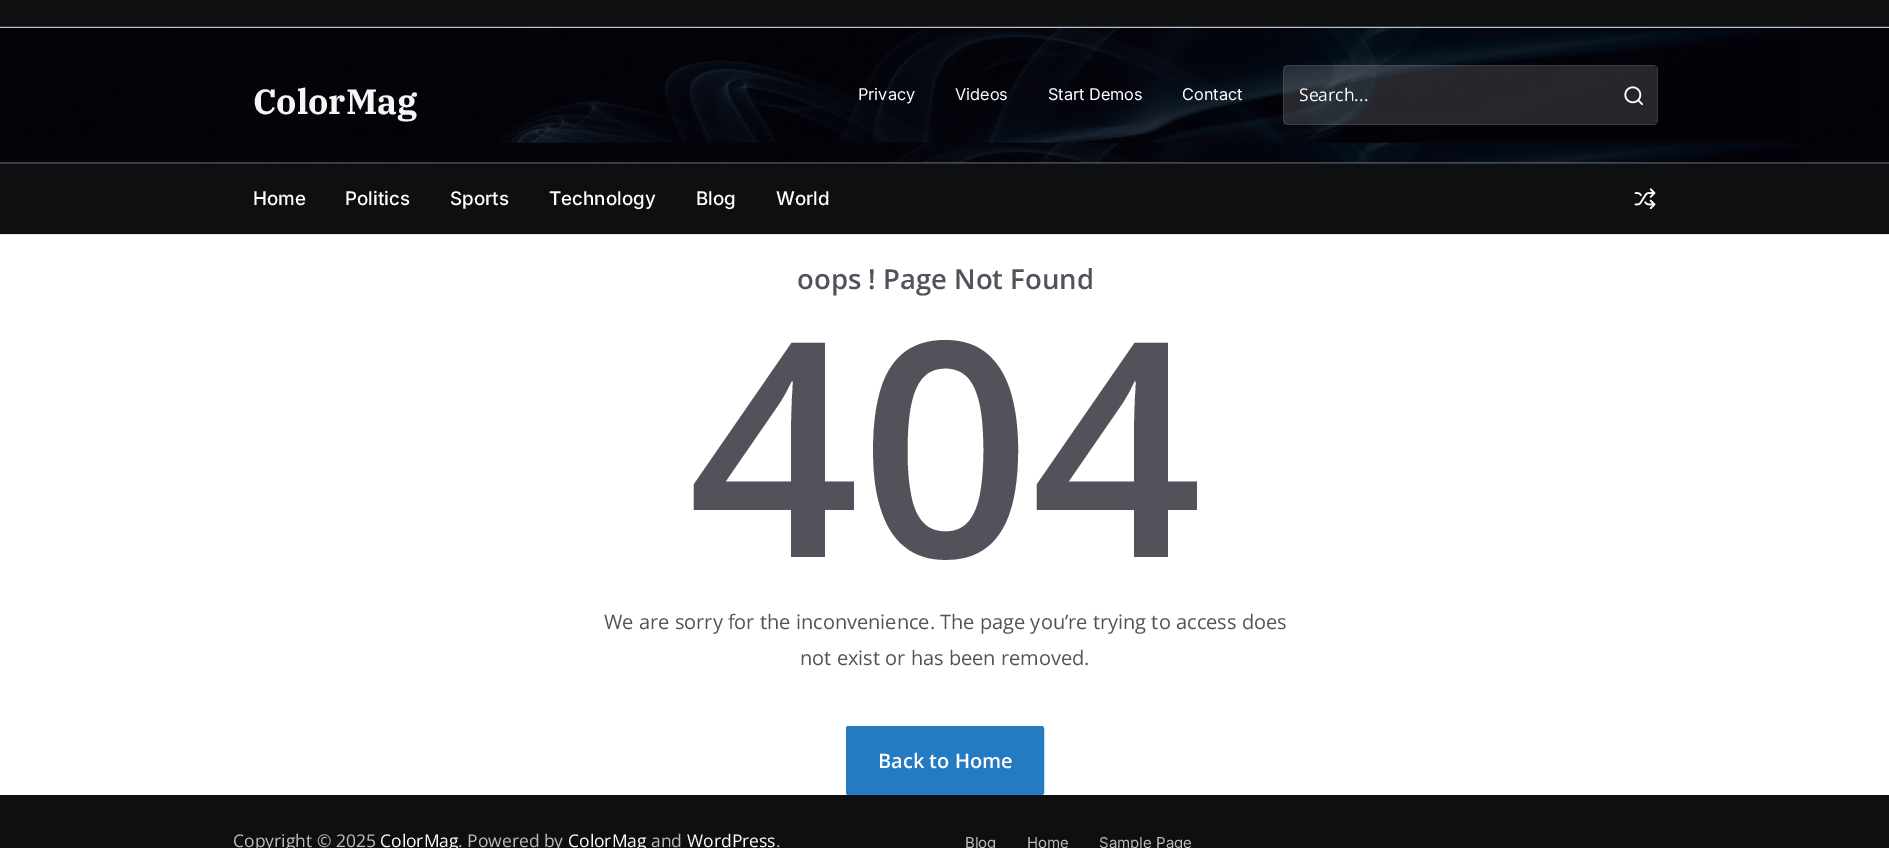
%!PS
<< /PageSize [1889 848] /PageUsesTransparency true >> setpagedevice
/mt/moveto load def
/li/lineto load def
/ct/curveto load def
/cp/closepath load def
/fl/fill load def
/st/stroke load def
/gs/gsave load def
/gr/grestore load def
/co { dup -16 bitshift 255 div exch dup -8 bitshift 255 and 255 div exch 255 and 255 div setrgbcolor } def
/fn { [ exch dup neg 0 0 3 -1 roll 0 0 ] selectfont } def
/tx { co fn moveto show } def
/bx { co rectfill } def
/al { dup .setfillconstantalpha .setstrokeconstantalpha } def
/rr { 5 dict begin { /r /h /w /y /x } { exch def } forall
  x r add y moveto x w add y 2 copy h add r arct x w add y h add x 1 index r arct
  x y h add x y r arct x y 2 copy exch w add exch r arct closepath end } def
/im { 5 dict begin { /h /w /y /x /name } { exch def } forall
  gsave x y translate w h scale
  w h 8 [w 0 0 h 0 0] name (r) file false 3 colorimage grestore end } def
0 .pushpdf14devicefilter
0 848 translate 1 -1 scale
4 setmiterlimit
0 0 1889 848 16#FFFFFF bx
0 234 1889 1 16#E4E4E7 bx
0 0 1889 26 16#0D0F11 bx
0 26 1889 1 16#383838 bx
(media/1.raw) 0 27 1889 136 im
0.14 al
16#FFFFFF co
1283 65 375 60 5 rr fl
0.1 al
16#EBEBEC co
1288 65 mt 1285 65 1283 67 1283 70 ct 1283 120 li 1283 123 1285 125 1288 125 ct 1653 125 li 1654 125 1655 125 1656 124 ct 1288 124 li 1286 124 1284 122 1284 120 ct 1284 70 li 1284 68 1286 66 1288 66 ct 1656 66 li 1653 65 li cp 1657 67 mt 1657 123 li 1658 122 1658 121 1658 120 ct 1658 70 li 1658 69 1658 68 1657 67 ct cp eofill
1 al
(media/2.raw) 1624 86 20 20 im
0 164 1889 70 16#0D0F11 bx
0 163 1889 1 16#383838 bx
(media/3.raw) 1634 188 22 22 im
16#257BC1 co
846.5 726.5 197 68 2 rr gs fl gr
st
0 795 1889 53 16#0D0F11 bx
(ColorMag) 253 114 /IBMPlexSerif-Bold 35 16#F5F5F5 tx
(Privacy) 858 100 /Inter-Regular 16.25 16#FFFFFF tx
(Videos) 955 100 /Inter-Regular 16.25 16#FFFFFF tx
(Start Demos) 1048 100 /Inter-Regular 16.25 16#FFFFFF tx
(Contact) 1182 100 /Inter-Regular 16.25 16#FFFFFF tx
(Search...) 1299 101 /OpenSans-Regular 17.5 16#FFFFFF tx
(Home) 253 205 /Inter-Medium 18.75 16#FFFFFF tx
(Politics) 345 205 /Inter-Medium 18.75 16#FFFFFF tx
(Sports) 450 205 /Inter-Medium 18.75 16#FFFFFF tx
(Technology) 549 205 /Inter-Medium 18.75 16#FFFFFF tx
(Blog) 696 205 /Inter-Medium 18.75 16#FFFFFF tx
(World) 776 205 /Inter-Medium 18.75 16#FFFFFF tx
(oops ! Page Not Found) 797 289 /OpenSans-SemiBold 27.5 16#52525B tx
(404) 688 557 /OpenSans-SemiBold 300 16#52525B tx
(We are sorry for the inconvenience. The page you’re trying to access does) 604 629 /OpenSans-Regular 20 16#52525B tx
(not exist or has been removed.) 800 665 /OpenSans-Regular 20 16#52525B tx
(Back to Home) 878 768 /OpenSans-SemiBold 20 16#FFFFFF tx
(Copyright © 2025) 233 847 /OpenSans-Regular 17.5 16#BDBDBD tx
(ColorMag) 380 847 /OpenSans-Regular 17.5 16#FFFFFF tx
(. Powered by) 458 847 /OpenSans-Regular 17.5 16#BDBDBD tx
(ColorMag) 568 847 /OpenSans-Regular 17.5 16#FFFFFF tx
(and) 651 847 /OpenSans-Regular 17.5 16#BDBDBD tx
(WordPress) 687 847 /OpenSans-Regular 17.5 16#FFFFFF tx
(.) 776 847 /OpenSans-Regular 17.5 16#BDBDBD tx
(Blog) 965 848 /Inter-Regular 15 16#BDBDBD tx
(Home) 1027 848 /Inter-Regular 15 16#BDBDBD tx
(Sample Page) 1099 848 /Inter-Regular 15 16#BDBDBD tx
.poppdf14devicefilter showpage
